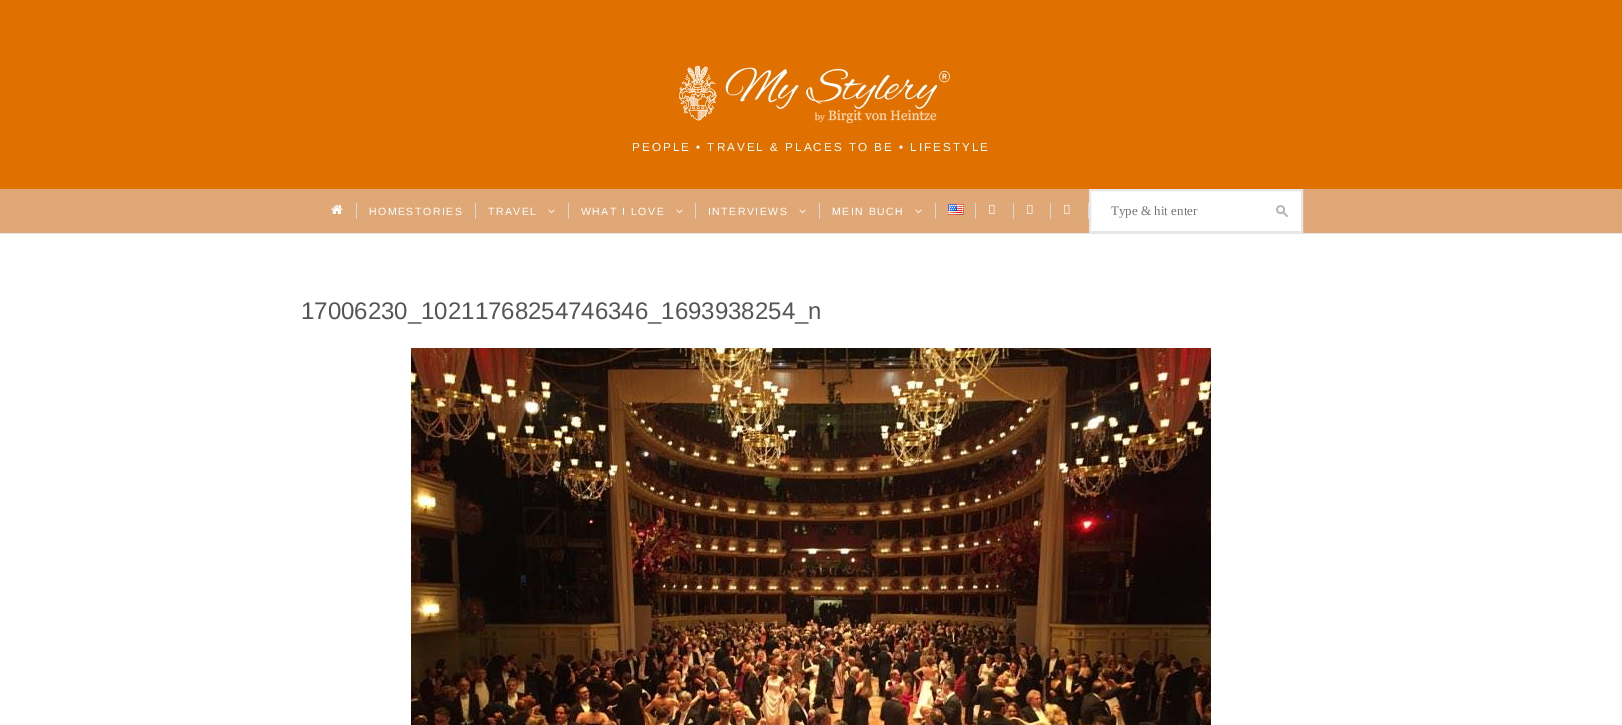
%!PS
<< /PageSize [1622 725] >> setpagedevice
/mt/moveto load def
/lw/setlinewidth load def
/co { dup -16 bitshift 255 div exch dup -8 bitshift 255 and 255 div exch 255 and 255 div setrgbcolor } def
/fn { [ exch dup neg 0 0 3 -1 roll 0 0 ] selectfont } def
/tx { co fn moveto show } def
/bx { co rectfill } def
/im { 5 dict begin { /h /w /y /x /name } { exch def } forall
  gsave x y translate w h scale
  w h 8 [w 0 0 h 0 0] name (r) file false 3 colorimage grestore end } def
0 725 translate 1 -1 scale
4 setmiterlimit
0 0 1622 725 16#FFFFFF bx
0 0 1622 189 16#E07000 bx
(media/1.raw) 679 65 271 59 im
0 189 1622 44 16#E0A876 bx
0 233 1622 1 16#E7E7E7 bx
(media/2.raw) 331 204 12 10 im
356 203 1 16 16#D7D7D7 bx
475 203 1 16 16#D7D7D7 bx
(media/3.raw) 548 209 7 5 im
568 203 1 16 16#D7D7D7 bx
(media/3.raw) 676 209 7 5 im
695 203 1 16 16#D7D7D7 bx
(media/3.raw) 799 209 7 5 im
819 203 1 16 16#D7D7D7 bx
(media/3.raw) 915 209 7 5 im
935 203 1 16 16#D7D7D7 bx
(media/4.raw) 948 204 16 11 im
975 203 1 16 16#D7D7D7 bx
(media/5.raw) 989 204 6 10 im
1013 203 1 16 16#D7D7D7 bx
(media/5.raw) 1027 204 6 10 im
1050 203 1 16 16#D7D7D7 bx
(media/5.raw) 1064 204 6 10 im
1088 203 1 16 16#D7D7D7 bx
1091 191 210 40 16#FFFFFF bx
(media/6.raw) 1276 205 12 12 im
16#E7E7E7 co
2 lw
1090 190 212 42 rectstroke
(media/7.raw) 411 348 800 377 im
/LiberationSans-Regular 11.7 fn
16#FFFFFF co
632 151 mt 2 0 (PEOPLE • TRAVEL & PLACES TO BE • LIFESTYLE) ashow
/LiberationSans-Regular 10.5 fn
369 215 mt 1.5 0 (HOMESTORIES) ashow
488 215 mt 1.5 0 (TRAVEL) ashow
581 215 mt 1.5 0 (WHAT I LOVE) ashow
708 215 mt 1.5 0 (INTERVIEWS) ashow
832 215 mt 1.5 0 (MEIN BUCH) ashow
(Type & hit enter) 1111 215 /LiberationSerif-Regular 13 16#757575 tx
(17006230_10211768254746346_1693938254_n) 301 319 /LiberationSans-Regular 24 16#555555 tx
showpage
